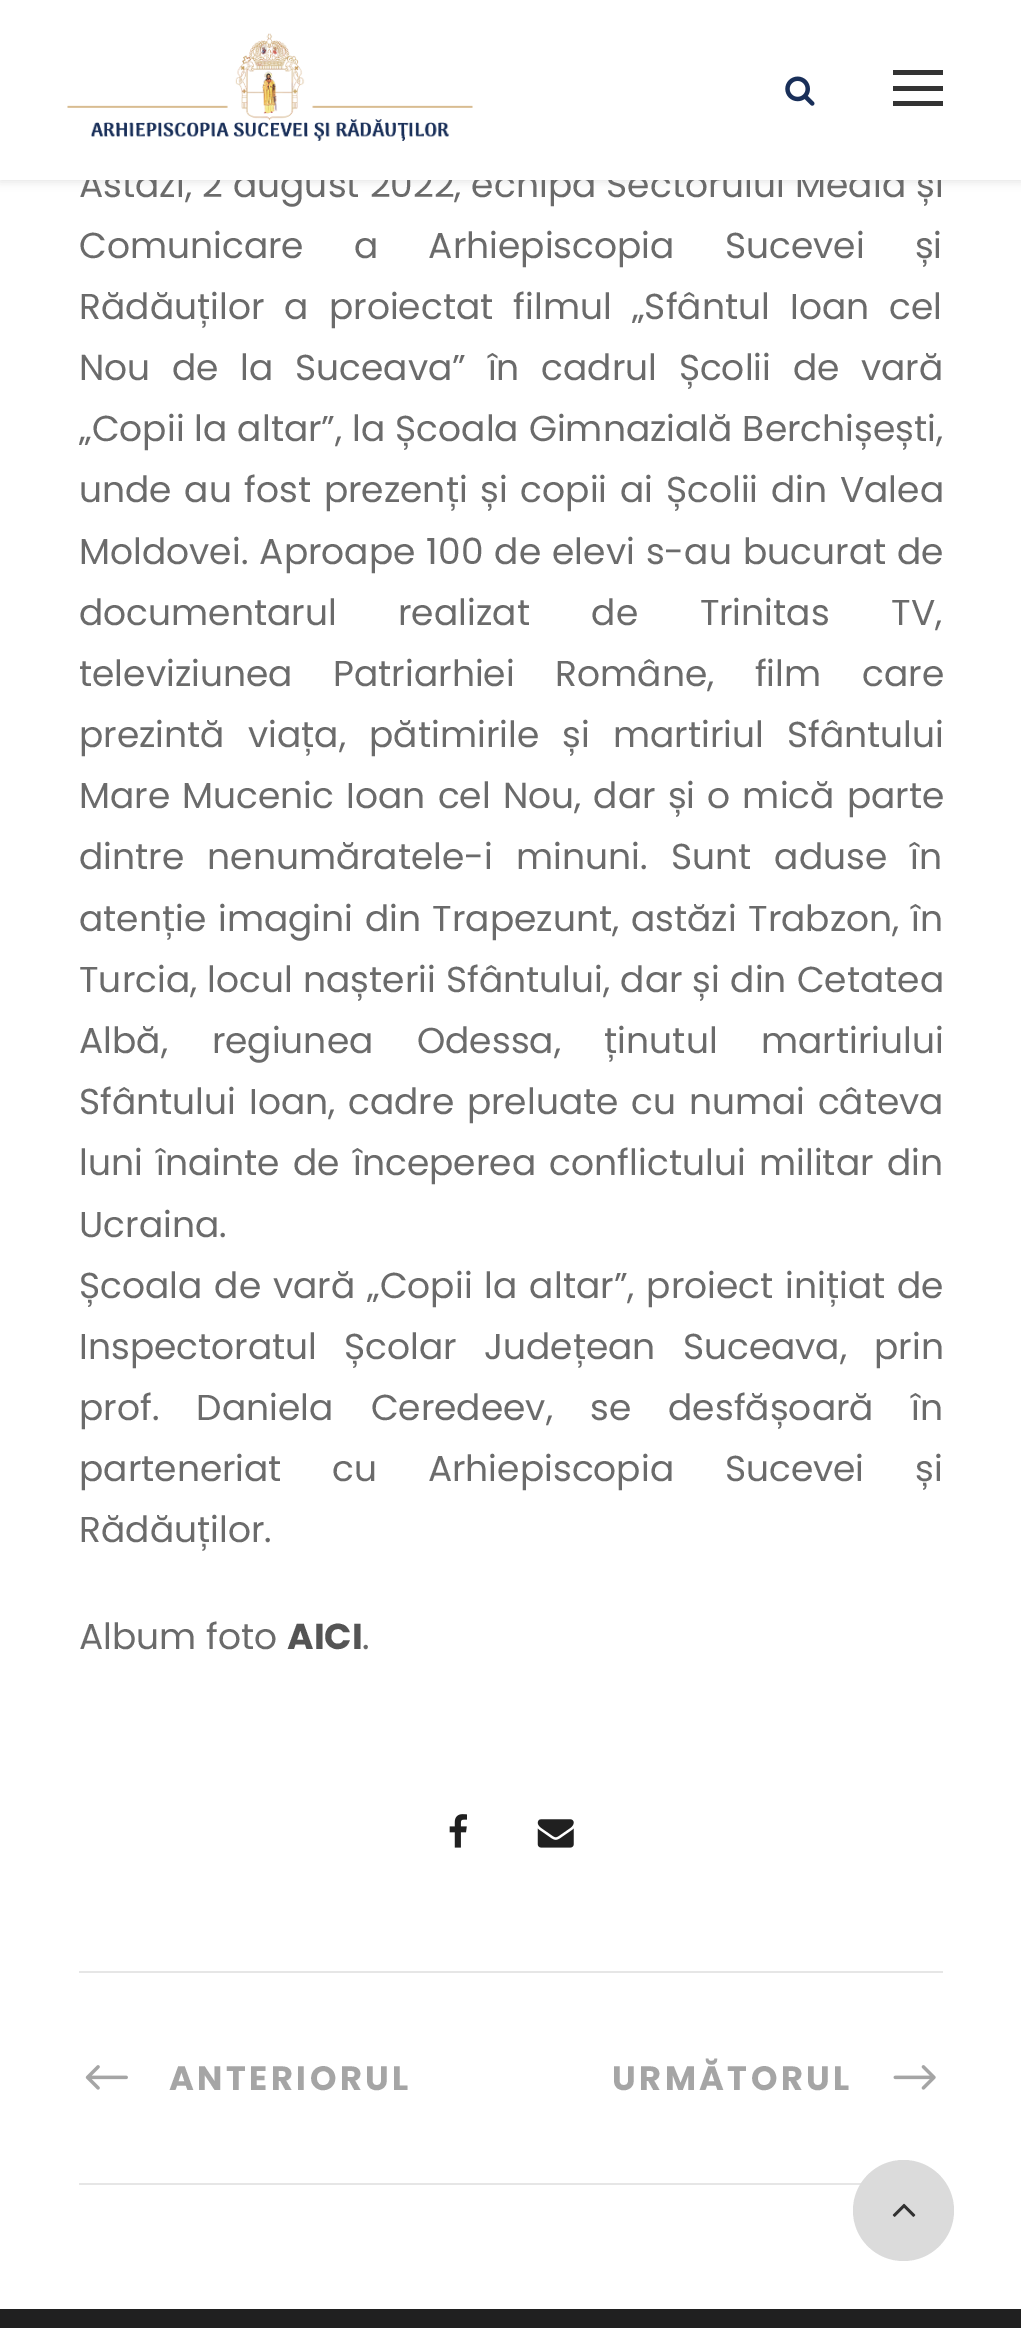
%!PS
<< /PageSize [1021 2328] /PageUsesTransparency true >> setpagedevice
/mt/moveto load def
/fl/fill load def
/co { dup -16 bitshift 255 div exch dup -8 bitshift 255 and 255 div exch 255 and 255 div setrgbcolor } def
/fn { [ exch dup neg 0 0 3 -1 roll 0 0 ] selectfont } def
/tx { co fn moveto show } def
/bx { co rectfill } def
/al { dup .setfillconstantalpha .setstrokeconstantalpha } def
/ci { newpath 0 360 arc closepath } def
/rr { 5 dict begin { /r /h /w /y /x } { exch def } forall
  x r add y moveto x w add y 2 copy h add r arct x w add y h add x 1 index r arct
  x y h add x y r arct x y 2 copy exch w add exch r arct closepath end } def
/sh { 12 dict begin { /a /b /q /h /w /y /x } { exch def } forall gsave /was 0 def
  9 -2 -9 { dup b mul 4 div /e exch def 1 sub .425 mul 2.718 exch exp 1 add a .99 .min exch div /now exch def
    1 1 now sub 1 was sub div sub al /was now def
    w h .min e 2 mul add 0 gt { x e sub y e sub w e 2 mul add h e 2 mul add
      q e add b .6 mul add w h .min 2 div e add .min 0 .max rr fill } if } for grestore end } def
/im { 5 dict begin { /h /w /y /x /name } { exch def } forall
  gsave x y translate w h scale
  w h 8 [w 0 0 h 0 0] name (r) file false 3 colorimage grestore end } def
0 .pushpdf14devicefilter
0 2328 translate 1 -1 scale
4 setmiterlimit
0 0 1021 2328 16#FFFFFF bx
16#000000 co
0 2 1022 180 0 4.5 .1 sh
(media/3.raw) 449 1814 18 34 im
(media/4.raw) 537 1819 37 29 im
79 1971 864 2 16#E6E6E6 bx
79 2183 783 2 16#E6E6E6 bx
(media/5.raw) 85 2065 43 25 im
(media/6.raw) 893 2065 43 25 im
0 2309 1021 19 16#202020 bx
16#DBDBDB co
903.5 2210.5 50.5 ci fl
(media/7.raw) 892 2203 24 14 im
/Poppins-Regular 36 fn
16#6B6B6B co
79 197 mt .5 0 32 (Astăzi, 2 august 2022, echipa Sectorului Media și) widthshow
0 0 1021 180 16#FFFFFF bx
893 101 50 5 16#333333 bx
893 86 50 5 16#333333 bx
893 70 50 5 16#333333 bx
(media/2.raw) 785 76 30 30 im
(media/1.raw) 67 33 406 108 im
16#6B6B6B co
79 258 mt 40.5 0 32 (Comunicare a Arhiepiscopia Sucevei și) widthshow
79 319 mt 10.5 0 32 (Rădăuților a proiectat filmul „Sfântul Ioan cel) widthshow
79 380 mt 12 0 32 (Nou de la Suceava” în cadrul Școlii de vară) widthshow
79 441 mt .25 0 32 („Copii la altar”, la Școala Gimnazială Berchișești,) widthshow
79 502 mt 3 0 32 (unde au fost prezenți și copii ai Școlii din Valea) widthshow
79 564 mt 1.5 0 32 (Moldovei. Aproape 100 de elevi s-au bucurat de) widthshow
79 625 mt 52 0 32 (documentarul realizat de Trinitas TV,) widthshow
79 686 mt 31 0 32 (televiziunea Patriarhiei Române, film care) widthshow
79 747 mt 13.5 0 32 (prezintă viața, pătimirile și martiriul Sfântului) widthshow
79 808 mt 2.5 0 32 (Mare Mucenic Ioan cel Nou, dar și o mică parte) widthshow
79 869 mt 13.5 0 32 (dintre nenumăratele-i minuni. Sunt aduse în) widthshow
79 931 mt 2 0 32 (atenție imagini din Trapezunt, astăzi Trabzon, în) widthshow
79 992 mt .5 0 32 (Turcia, locul nașterii Sfântului, dar și din Cetatea) widthshow
79 1053 mt 34 0 32 (Albă, regiunea Odessa, ținutul martiriului) widthshow
79 1114 mt 3 0 32 (Sfântului Ioan, cadre preluate cu numai câteva) widthshow
79 1175 mt 3.75 0 32 (luni înainte de începerea conflictului militar din) widthshow
(Ucraina.) 79 1237 /Poppins-Regular 36 16#6B6B6B tx
79 1298 mt 2.25 0 32 (Școala de vară „Copii la altar”, proiect inițiat de) widthshow
79 1359 mt 17.5 0 32 (Inspectoratul Școlar Județean Suceava, prin) widthshow
79 1420 mt 27.5 0 32 (prof. Daniela Ceredeev, se desfășoară în) widthshow
79 1481 mt 41 0 32 (parteneriat cu Arhiepiscopia Sucevei și) widthshow
(Rădăuților.) 79 1542 /Poppins-Regular 36 16#6B6B6B tx
(Album foto) 79 1649 /Poppins-Regular 36 16#6B6B6B tx
(AICI) 287 1649 /Poppins-Bold 36 16#545454 tx
(.) 362 1649 /Poppins-Regular 36 16#6B6B6B tx
/Poppins-Bold 33.75 fn
16#A5A5A5 co
169 2090 mt 3.4 0 (ANTERIORUL) ashow
612 2090 mt 3.4 0 (URMĂTORUL) ashow
.poppdf14devicefilter showpage
